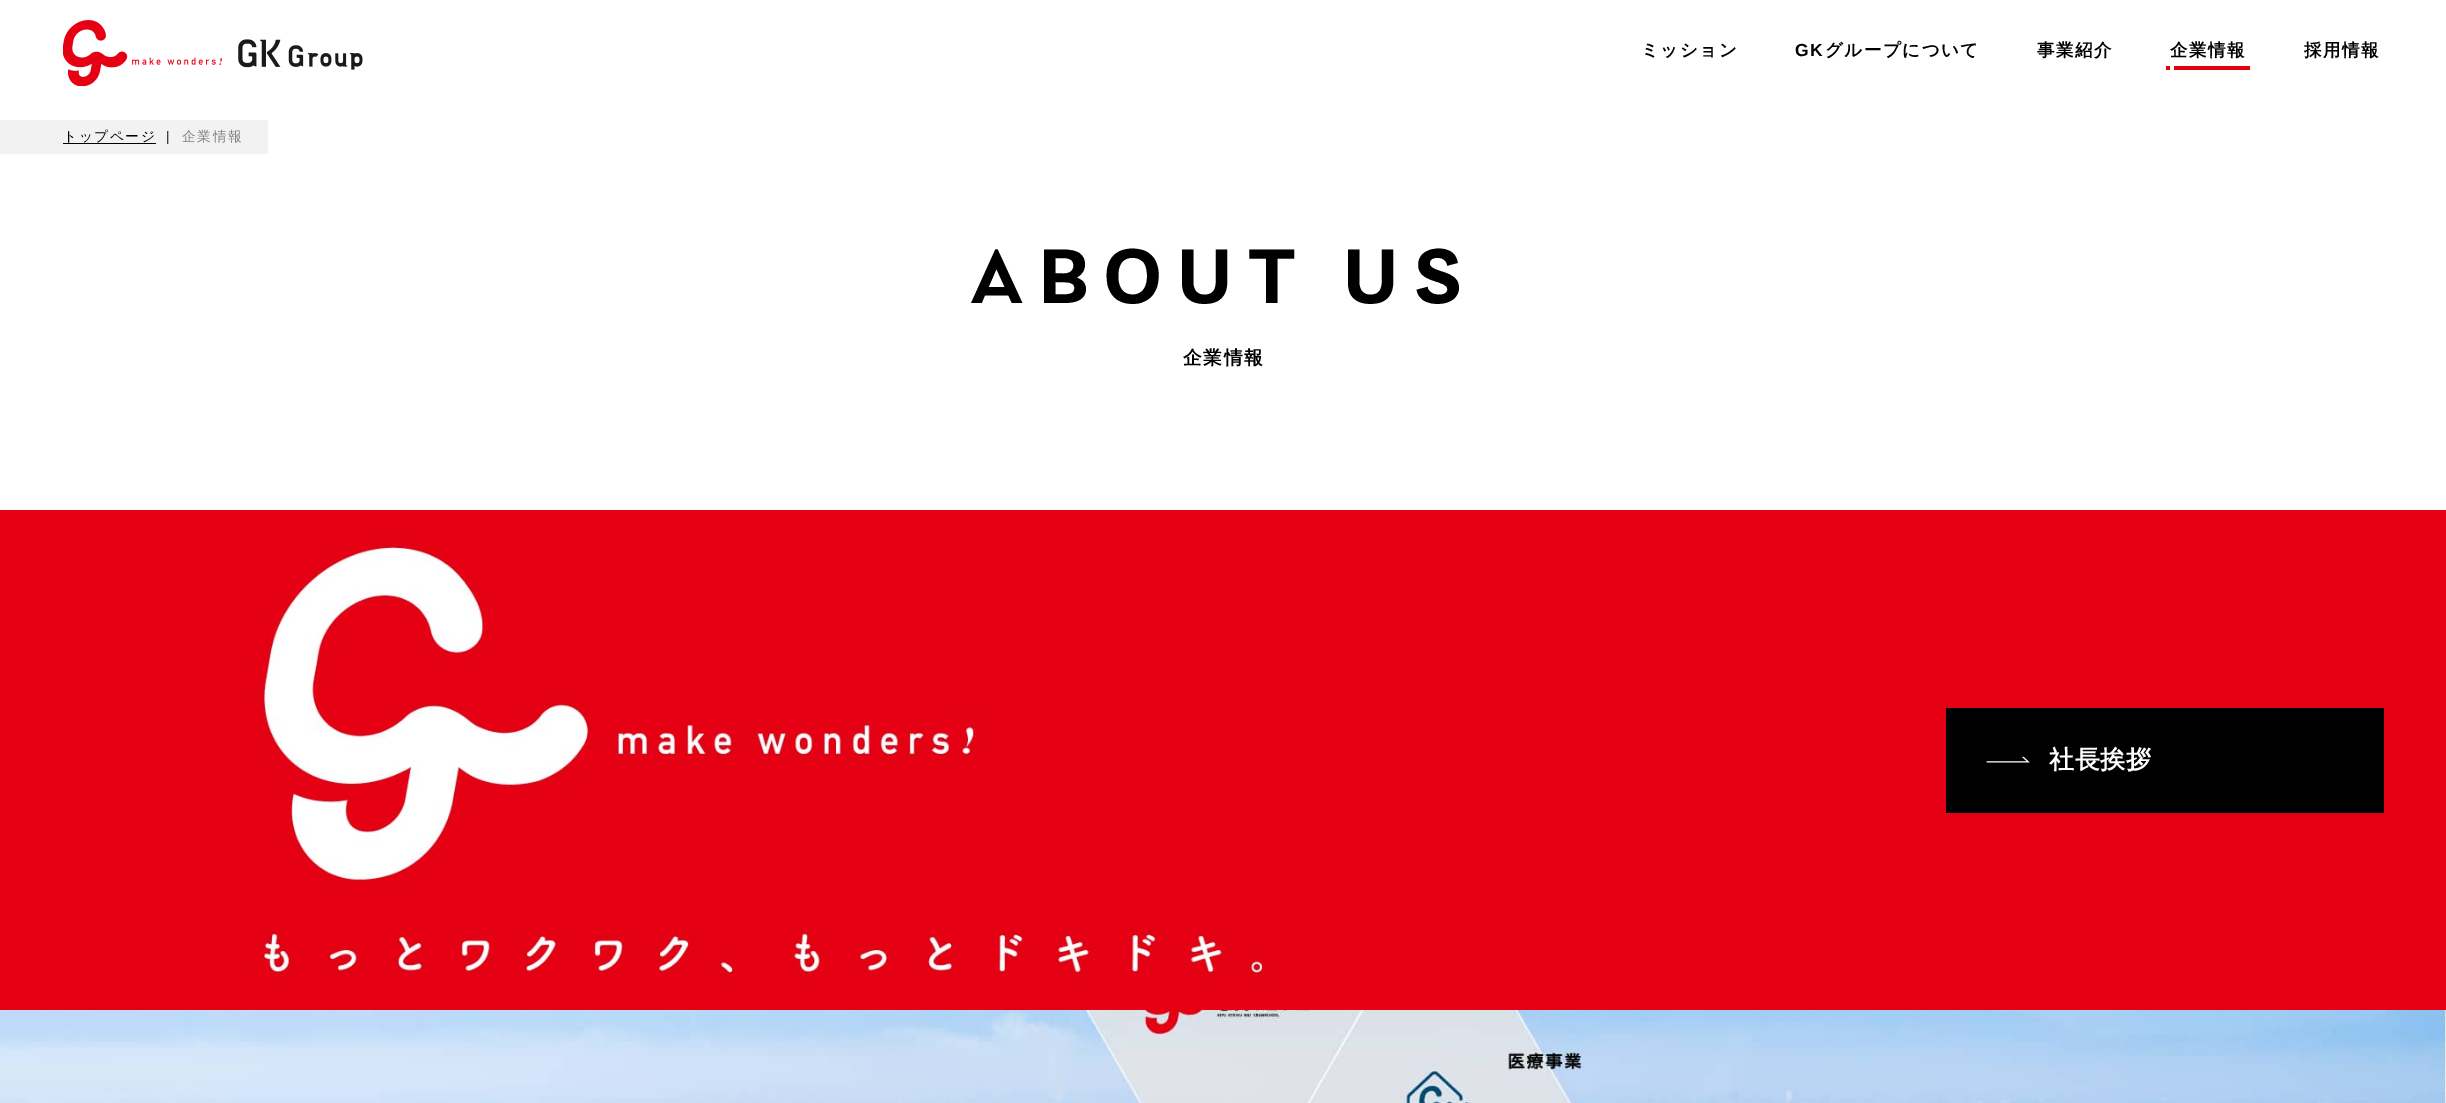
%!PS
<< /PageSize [2446 1103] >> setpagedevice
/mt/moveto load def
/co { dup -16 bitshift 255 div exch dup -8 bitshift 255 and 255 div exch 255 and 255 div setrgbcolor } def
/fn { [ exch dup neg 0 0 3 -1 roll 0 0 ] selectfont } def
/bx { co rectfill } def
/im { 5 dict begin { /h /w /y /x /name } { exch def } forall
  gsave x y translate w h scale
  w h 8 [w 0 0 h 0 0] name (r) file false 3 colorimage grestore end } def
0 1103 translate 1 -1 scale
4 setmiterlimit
0 0 2446 1103 16#FFFFFF bx
(media/1.raw) 63 20 300 66 im
2166 66 4 4 16#E50012 bx
2174 66 76 4 16#E50012 bx
0 120 268 34 16#F2F2F2 bx
63 143 93 1 16#000000 bx
(media/2.raw) 0 510 2446 500 im
1946 708 438 105 16#000000 bx
(media/3.raw) 1986 756 44 7 im
(media/4.raw) 0 1010 2446 93 im
/WenQuanYiZenHei-Bold 17.5 fn
1641 56 mt 1.5 0 (ミッション) ashow
/LiberationSans-Bold 17.5 fn
1795 56 mt 1.5 0 (GK) ashow
/WenQuanYiZenHei-Bold 17.5 fn
1825 56 mt 1.5 0 (グループについて) ashow
2037 56 mt 1.5 0 (事業紹介) ashow
2170 56 mt 1.5 0 (企業情報) ashow
2304 56 mt 1.5 0 (採用情報) ashow
/WenQuanYiZenHei-Medium 13.75 fn
63 141 mt 1.5 0 (トップページ) ashow
/LiberationSans-Regular 13.75 fn
166 141 mt 1.5 0 (|) ashow
/WenQuanYiZenHei-Medium 13.75 fn
16#808080 co
182 141 mt 1.5 0 (企業情報) ashow
/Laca-SemiBold 81.25 fn
16#000000 co
970 303 mt 14.5 0 (ABOUT US) ashow
/WenQuanYiZenHei-Bold 18.75 fn
1183 364 mt 1.5 0 (企業情報) ashow
/WenQuanYiZenHei-Bold 25 fn
16#FFFFFF co
2049 768 mt .5 0 (社長挨拶) ashow
showpage
